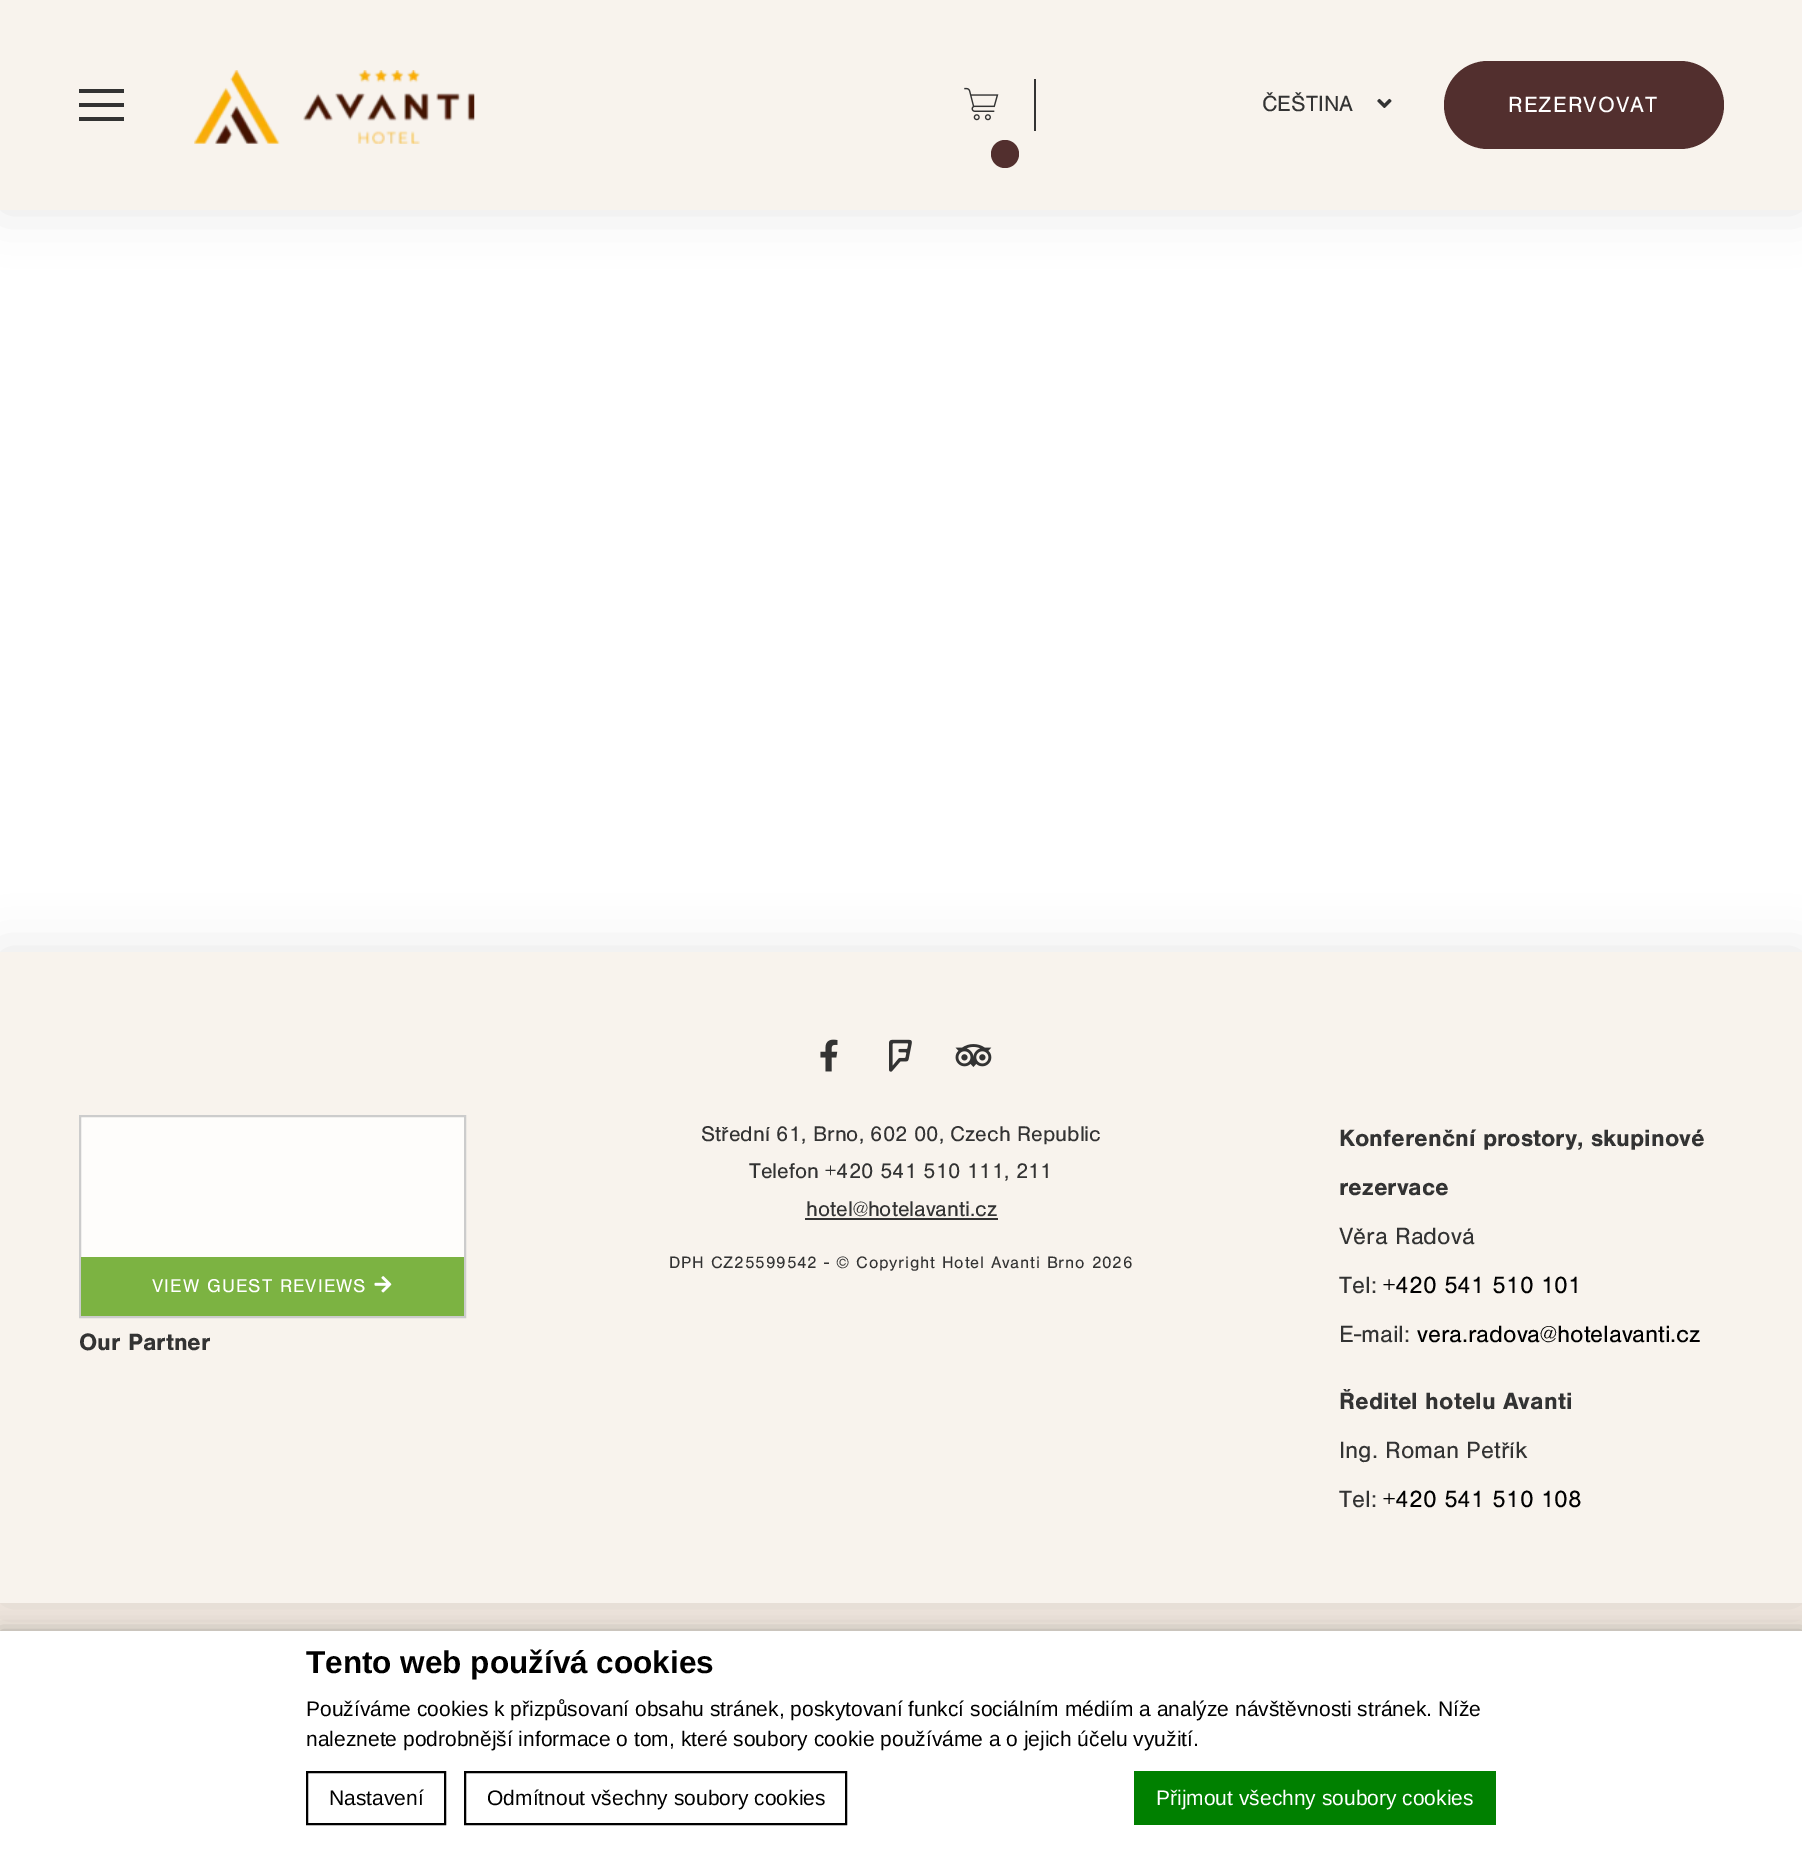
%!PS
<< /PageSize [1802 1851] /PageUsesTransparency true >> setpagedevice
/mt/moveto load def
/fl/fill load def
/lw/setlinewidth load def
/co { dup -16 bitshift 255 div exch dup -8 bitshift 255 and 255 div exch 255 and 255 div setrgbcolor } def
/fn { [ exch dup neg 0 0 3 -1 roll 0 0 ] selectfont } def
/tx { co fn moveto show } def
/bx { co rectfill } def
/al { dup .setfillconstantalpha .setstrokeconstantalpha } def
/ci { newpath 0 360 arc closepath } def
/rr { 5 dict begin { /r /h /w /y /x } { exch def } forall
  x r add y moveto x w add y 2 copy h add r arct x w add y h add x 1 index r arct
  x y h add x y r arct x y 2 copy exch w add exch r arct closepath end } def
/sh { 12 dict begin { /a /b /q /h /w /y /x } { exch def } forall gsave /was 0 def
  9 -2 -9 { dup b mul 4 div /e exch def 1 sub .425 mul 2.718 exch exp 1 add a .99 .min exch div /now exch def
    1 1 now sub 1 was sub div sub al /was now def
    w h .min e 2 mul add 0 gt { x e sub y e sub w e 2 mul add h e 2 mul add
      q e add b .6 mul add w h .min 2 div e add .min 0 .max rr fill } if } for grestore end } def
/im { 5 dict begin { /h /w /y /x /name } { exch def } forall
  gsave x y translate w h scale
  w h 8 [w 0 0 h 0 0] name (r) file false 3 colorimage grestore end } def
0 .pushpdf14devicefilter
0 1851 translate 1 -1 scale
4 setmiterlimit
0 0 1802 1851 16#FFFFFF bx
16#000000 co
0 0 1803 210 0 26 .1 sh
0 0 1802 210 16#F8F3ED bx
79 89 45 4 16#333333 bx
79 117 45 4 16#333333 bx
79 103 45 4 16#333333 bx
(media/1.raw) 194 70 281 74 im
(media/2.raw) 964 87 35 34 im
1034 79 2 52 16#333333 bx
16#522F2E co
1005 154 14 ci fl
(media/3.raw) 1377 98 15 10 im
1444 61 280 88 44 rr fl
0 1603 1802 28 16#F4EBE2 bx
16#000000 co
0 952 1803 651 0 26 .1 sh
0 952 1802 651 16#F8F3ED bx
(media/4.raw) 820 1039 18 33 im
(media/5.raw) 889 1039 23 33 im
(media/6.raw) 955 1044 37 23 im
81 1117 383 140 16#FEFDFB bx
16#CCCCCC co
2 lw
80 1116 385 201 rectstroke
81 1257 383 59 16#7CB342 bx
(media/7.raw) 374 1276 18 17 im
805 1218 193 2 16#333333 bx
16#000000 co
0 1631 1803 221 0 9 .3 sh
0 1631 1802 220 16#FFFFFF bx
16#000000 co
307 1772 138 52 rectstroke
465 1772 381 52 rectstroke
1134 1771 362 54 16#008000 bx
(ČEŠTINA) 1262 111 /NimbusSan-Regular 22.75 16#333333 tx
16#FFFFFF co
1508 112 mt 1.1 0 (REZERVOVAT) ashow
/NimbusSan-Regular 19.25 fn
152 1292 mt 1 0 (VIEW GUEST REVIEWS) ashow
(Our Partner) 79 1350 /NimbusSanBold-Bold 24.5 16#333333 tx
(Střední 61, Brno, 602 00, Czech Republic) 701 1141 /NimbusSan-Regular 22 16#333333 tx
(Telefon +420 541 510 111, 211) 749 1178 /NimbusSan-Regular 22 16#333333 tx
(hotel@hotelavanti.cz) 806 1216 /NimbusSan-Regular 22 16#333333 tx
/NimbusSan-Regular 17.15 fn
669 1268 mt .85 0 (DPH CZ25599542 - © Copyright Hotel Avanti Brno 2026) ashow
(Konferenční prostory, skupinové) 1339 1146 /NimbusSanBold-Bold 24.5 16#333333 tx
(rezervace) 1339 1195 /NimbusSanBold-Bold 24.5 16#333333 tx
(Věra Radová) 1339 1244 /NimbusSan-Regular 24.5 16#333333 tx
(Tel:) 1339 1293 /NimbusSan-Regular 24.5 16#333333 tx
(+420 541 510 101) 1383 1293 /NimbusSan-Regular 24.5 16#000000 tx
(E-mail:) 1339 1342 /NimbusSan-Regular 24.5 16#333333 tx
(vera.radova@hotelavanti.cz) 1417 1342 /NimbusSan-Regular 24.5 16#000000 tx
(Ředitel hotelu Avanti) 1339 1409 /NimbusSanBold-Bold 24.5 16#333333 tx
(Ing. Roman Petřík) 1339 1458 /NimbusSan-Regular 24.5 16#333333 tx
(Tel:) 1339 1507 /NimbusSan-Regular 24.5 16#333333 tx
(+420 541 510 108) 1383 1507 /NimbusSan-Regular 24.5 16#000000 tx
(Tento web používá cookies) 306 1673 /LiberationSans-Bold 31.5 16#000000 tx
(Používáme cookies k přizpůsovaní obsahu stránek, poskytovaní funkcí sociálním médiím a analýze návštěvnosti stránek. Níže) 306 1716 /LiberationSans-Regular 21 16#000000 tx
(naleznete podrobnější informace o tom, které soubory cookie používáme a o jejich účelu využití.) 306 1746 /LiberationSans-Regular 21 16#000000 tx
(Nastavení) 329 1805 /LiberationSans-Regular 21 16#000000 tx
(Odmítnout všechny soubory cookies) 487 1805 /LiberationSans-Regular 21 16#000000 tx
(Přijmout všechny soubory cookies) 1156 1805 /LiberationSans-Regular 21 16#FFFFFF tx
.poppdf14devicefilter showpage
